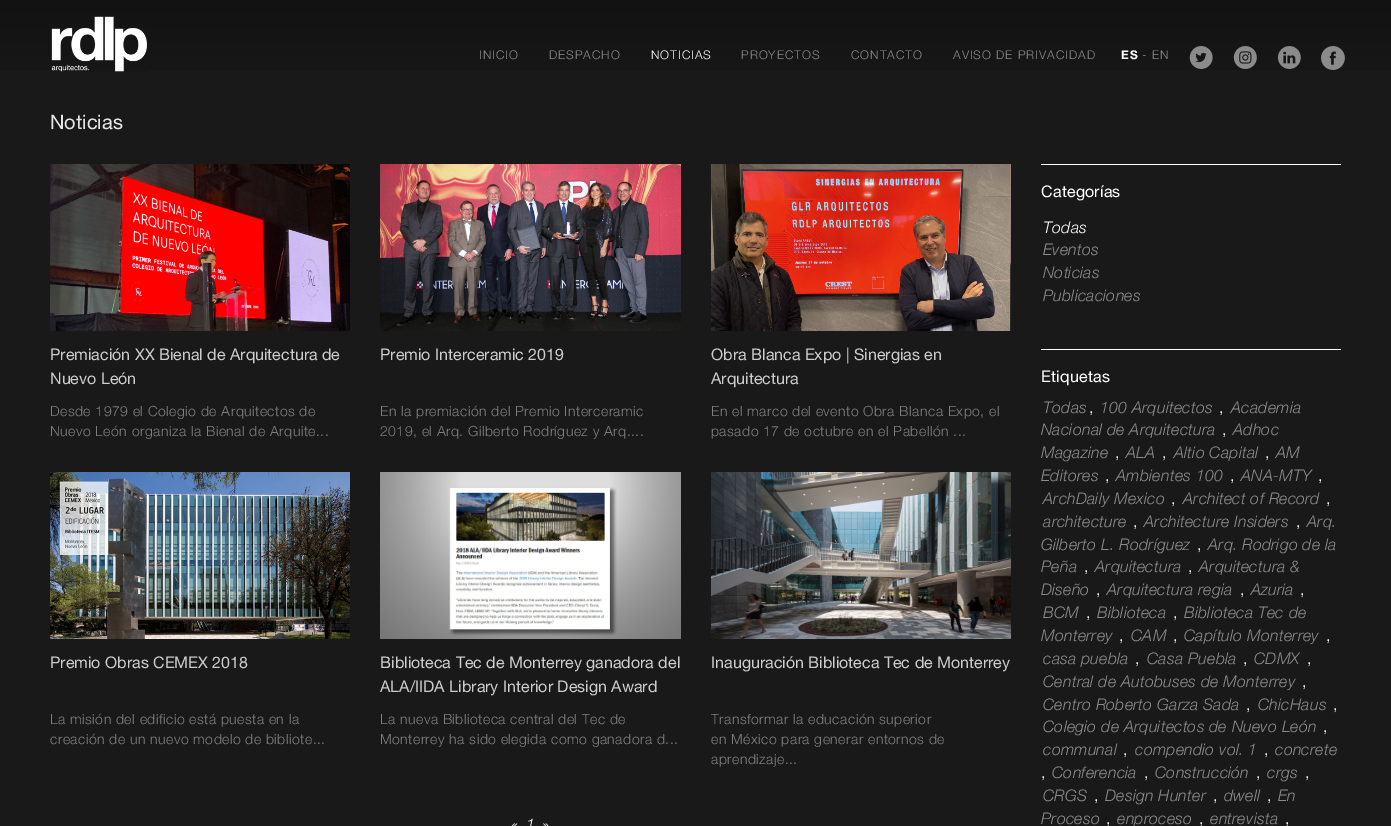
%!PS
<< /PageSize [1391 826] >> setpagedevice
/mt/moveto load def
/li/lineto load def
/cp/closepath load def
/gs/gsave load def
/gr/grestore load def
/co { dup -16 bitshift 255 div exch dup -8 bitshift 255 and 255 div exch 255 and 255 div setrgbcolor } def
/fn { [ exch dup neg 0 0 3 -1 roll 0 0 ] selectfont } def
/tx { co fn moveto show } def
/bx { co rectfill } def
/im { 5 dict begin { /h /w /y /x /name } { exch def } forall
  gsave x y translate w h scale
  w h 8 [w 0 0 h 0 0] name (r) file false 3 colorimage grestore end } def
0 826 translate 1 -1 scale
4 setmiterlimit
0 0 1391 826 16#191919 bx
gs 0 0 mt 1391 0 li 1391 70 li 0 70 li cp clip newpath
<< /ShadingType 2 /ColorSpace /DeviceRGB /Coords [696 109 696 0] /Extend [true true] /Function << /FunctionType 2 /Domain [0 1] /C0 [.098 .098 .098] /C1 [.071 .071 .071] /N 1 >> >> shfill gr
(media/1.raw) 51 16 96 56 im
(media/2.raw) 1189 46 24 23 im
(media/3.raw) 1233 46 24 23 im
(media/4.raw) 1277 46 24 23 im
(media/5.raw) 1321 46 24 24 im
(media/6.raw) 50 164 300 167 im
(media/7.raw) 380 164 301 167 im
(media/8.raw) 711 164 300 167 im
(media/9.raw) 50 472 300 167 im
(media/10.raw) 380 472 301 167 im
(media/11.raw) 711 472 300 167 im
(media/12.raw) 511 823 7 3 im
(media/13.raw) 543 823 6 3 im
1041 164 300 1 16#FFFFFF bx
1041 349 300 1 16#FFFFFF bx
/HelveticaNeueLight-Regular 12 fn
16#8C8C8C co
479 59 mt 1 0 (INICIO) ashow
549 59 mt 1 0 (DESPACHO) ashow
16#FFFFFF co
651 59 mt 1 0 (NOTICIAS) ashow
16#8C8C8C co
741 59 mt 1 0 (PROYECTOS) ashow
851 59 mt 1 0 (CONTACTO) ashow
953 59 mt 1 0 (AVISO DE PRIVACIDAD) ashow
/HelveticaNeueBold-Regular 12 fn
16#FFFFFF co
1121 59 mt 1 0 (ES) ashow
/HelveticaNeueLight-Regular 12 fn
16#8C8C8C co
1142 59 mt 1 0 (-) ashow
1152 59 mt 1 0 (EN) ashow
(Noticias) 50 129 /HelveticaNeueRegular-Regular 20 16#E6E6E6 tx
(Premiación XX Bienal de Arquitectura de) 50 360 /HelveticaNeueRegular-Regular 16 16#CCCCCC tx
(Nuevo León) 50 384 /HelveticaNeueRegular-Regular 16 16#CCCCCC tx
/HelveticaNeueLight-Regular 14 fn
16#7F7F7F co
50 416 mt .45 0 (Desde 1979 el Colegio de Arquitectos de) ashow
50 436 mt .45 0 (Nuevo León organiza la Bienal de Arquite...) ashow
(Premio Interceramic 2019) 380 360 /HelveticaNeueRegular-Regular 16 16#CCCCCC tx
/HelveticaNeueLight-Regular 14 fn
16#7F7F7F co
380 416 mt .45 0 (En la premiación del Premio Interceramic) ashow
380 436 mt .45 0 (2019, el Arq. Gilberto Rodríguez y Arq....) ashow
(Obra Blanca Expo | Sinergias en) 711 360 /HelveticaNeueRegular-Regular 16 16#CCCCCC tx
(Arquitectura) 711 384 /HelveticaNeueRegular-Regular 16 16#CCCCCC tx
/HelveticaNeueLight-Regular 14 fn
16#7F7F7F co
711 416 mt .45 0 (En el marco del evento Obra Blanca Expo, el) ashow
711 436 mt .45 0 (pasado 17 de octubre en el Pabellón ...) ashow
(Premio Obras CEMEX 2018) 50 668 /HelveticaNeueRegular-Regular 16 16#CCCCCC tx
/HelveticaNeueLight-Regular 14 fn
16#7F7F7F co
50 724 mt .45 0 (La misión del edificio está puesta en la) ashow
50 744 mt .45 0 (creación de un nuevo modelo de bibliote...) ashow
(Biblioteca Tec de Monterrey ganadora del) 380 668 /HelveticaNeueRegular-Regular 16 16#CCCCCC tx
(ALA/IIDA Library Interior Design Award) 380 692 /HelveticaNeueRegular-Regular 16 16#CCCCCC tx
/HelveticaNeueLight-Regular 14 fn
16#7F7F7F co
380 724 mt .45 0 (La nueva Biblioteca central del Tec de) ashow
380 744 mt .45 0 (Monterrey ha sido elegida como ganadora d...) ashow
(Inauguración Biblioteca Tec de Monterrey) 711 668 /HelveticaNeueRegular-Regular 16 16#CCCCCC tx
/HelveticaNeueLight-Regular 14 fn
16#7F7F7F co
711 724 mt .45 0 (Transformar la educación superior) ashow
711 744 mt .45 0 (en México para generar entornos de) ashow
711 764 mt .45 0 (aprendizaje...) ashow
(1) 526 830 /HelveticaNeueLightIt-Regular 16 16#FFFFFF tx
/HelveticaNeueRegular-Regular 16 fn
1041 197 mt .2 0 (Categorías) ashow
/HelveticaNeueLightIt-Regular 16 fn
1043 233 mt .2 0 (Todas) ashow
16#8C8C8C co
1043 255 mt .2 0 (Eventos) ashow
1043 278 mt .2 0 (Noticias) ashow
1043 301 mt .2 0 (Publicaciones) ashow
/HelveticaNeueRegular-Regular 16 fn
16#FFFFFF co
1041 382 mt .2 0 (Etiquetas) ashow
/HelveticaNeueLightIt-Regular 16 fn
16#8C8C8C co
1043 413 mt .2 0 (Todas) ashow
/HelveticaNeueLight-Regular 16 fn
16#FFFFFF co
1089 413 mt .2 0 (,) ashow
/HelveticaNeueLightIt-Regular 16 fn
16#8C8C8C co
1100 413 mt .2 0 (100 Arquitectos) ashow
/HelveticaNeueLight-Regular 16 fn
16#FFFFFF co
1219 413 mt .2 0 (,) ashow
/HelveticaNeueLightIt-Regular 16 fn
16#8C8C8C co
1231 413 mt .2 0 (Academia) ashow
1041 435 mt .2 0 (Nacional de Arquitectura) ashow
/HelveticaNeueLight-Regular 16 fn
16#FFFFFF co
1222 435 mt .2 0 (,) ashow
/HelveticaNeueLightIt-Regular 16 fn
16#8C8C8C co
1233 435 mt .2 0 (Adhoc) ashow
1041 458 mt .2 0 (Magazine) ashow
1126 458 mt .2 0 (ALA) ashow
1174 458 mt .2 0 (Altio Capital) ashow
1276 458 mt .2 0 (AM) ashow
/HelveticaNeueLight-Regular 16 fn
16#FFFFFF co
1115 458 mt .2 0 (,) ashow
1162 458 mt .2 0 (,) ashow
1265 458 mt .2 0 (,) ashow
/HelveticaNeueLightIt-Regular 16 fn
16#8C8C8C co
1041 481 mt .2 0 (Editores) ashow
1116 481 mt .2 0 (Ambientes 100) ashow
1241 481 mt .2 0 (ANA-MTY) ashow
/HelveticaNeueLight-Regular 16 fn
16#FFFFFF co
1105 481 mt .2 0 (,) ashow
1230 481 mt .2 0 (,) ashow
1318 481 mt .2 0 (,) ashow
/HelveticaNeueLightIt-Regular 16 fn
16#8C8C8C co
1043 504 mt .2 0 (ArchDaily Mexico) ashow
/HelveticaNeueLight-Regular 16 fn
16#FFFFFF co
1171 504 mt .2 0 (,) ashow
/HelveticaNeueLightIt-Regular 16 fn
16#8C8C8C co
1183 504 mt .2 0 (Architect of Record) ashow
/HelveticaNeueLight-Regular 16 fn
16#FFFFFF co
1326 504 mt .2 0 (,) ashow
/HelveticaNeueLightIt-Regular 16 fn
16#8C8C8C co
1043 527 mt .2 0 (architecture) ashow
/HelveticaNeueLight-Regular 16 fn
16#FFFFFF co
1133 527 mt .2 0 (,) ashow
/HelveticaNeueLightIt-Regular 16 fn
16#8C8C8C co
1144 527 mt .2 0 (Architecture Insiders) ashow
/HelveticaNeueLight-Regular 16 fn
16#FFFFFF co
1296 527 mt .2 0 (,) ashow
/HelveticaNeueLightIt-Regular 16 fn
16#8C8C8C co
1307 527 mt .2 0 (Arq.) ashow
1041 550 mt .2 0 (Gilberto L. Rodríguez) ashow
/HelveticaNeueLight-Regular 16 fn
16#FFFFFF co
1197 550 mt .2 0 (,) ashow
/HelveticaNeueLightIt-Regular 16 fn
16#8C8C8C co
1208 550 mt .2 0 (Arq. Rodrigo de la) ashow
1041 572 mt .2 0 (Peña) ashow
/HelveticaNeueLight-Regular 16 fn
16#FFFFFF co
1084 572 mt .2 0 (,) ashow
/HelveticaNeueLightIt-Regular 16 fn
16#8C8C8C co
1095 572 mt .2 0 (Arquitectura) ashow
/HelveticaNeueLight-Regular 16 fn
16#FFFFFF co
1188 572 mt .2 0 (,) ashow
/HelveticaNeueLightIt-Regular 16 fn
16#8C8C8C co
1199 572 mt .2 0 (Arquitectura &) ashow
1041 595 mt .2 0 (Diseño) ashow
/HelveticaNeueLight-Regular 16 fn
16#FFFFFF co
1096 595 mt .2 0 (,) ashow
/HelveticaNeueLightIt-Regular 16 fn
16#8C8C8C co
1107 595 mt .2 0 (Arquitectura regia) ashow
/HelveticaNeueLight-Regular 16 fn
16#FFFFFF co
1240 595 mt .2 0 (,) ashow
/HelveticaNeueLightIt-Regular 16 fn
16#8C8C8C co
1251 595 mt .2 0 (Azuria) ashow
/HelveticaNeueLight-Regular 16 fn
16#FFFFFF co
1300 595 mt .2 0 (,) ashow
/HelveticaNeueLightIt-Regular 16 fn
16#8C8C8C co
1043 618 mt .2 0 (BCM) ashow
/HelveticaNeueLight-Regular 16 fn
16#FFFFFF co
1086 618 mt .2 0 (,) ashow
/HelveticaNeueLightIt-Regular 16 fn
16#8C8C8C co
1097 618 mt .2 0 (Biblioteca) ashow
/HelveticaNeueLight-Regular 16 fn
16#FFFFFF co
1173 618 mt .2 0 (,) ashow
/HelveticaNeueLightIt-Regular 16 fn
16#8C8C8C co
1184 618 mt .2 0 (Biblioteca Tec de) ashow
1041 641 mt .2 0 (Monterrey) ashow
/HelveticaNeueLight-Regular 16 fn
16#FFFFFF co
1119 641 mt .2 0 (,) ashow
/HelveticaNeueLightIt-Regular 16 fn
16#8C8C8C co
1131 641 mt .2 0 (CAM) ashow
/HelveticaNeueLight-Regular 16 fn
16#FFFFFF co
1173 641 mt .2 0 (,) ashow
/HelveticaNeueLightIt-Regular 16 fn
16#8C8C8C co
1184 641 mt .2 0 (Capítulo Monterrey) ashow
/HelveticaNeueLight-Regular 16 fn
16#FFFFFF co
1326 641 mt .2 0 (,) ashow
/HelveticaNeueLightIt-Regular 16 fn
16#8C8C8C co
1043 664 mt .2 0 (casa puebla) ashow
/HelveticaNeueLight-Regular 16 fn
16#FFFFFF co
1135 664 mt .2 0 (,) ashow
/HelveticaNeueLightIt-Regular 16 fn
16#8C8C8C co
1147 664 mt .2 0 (Casa Puebla) ashow
/HelveticaNeueLight-Regular 16 fn
16#FFFFFF co
1243 664 mt .2 0 (,) ashow
/HelveticaNeueLightIt-Regular 16 fn
16#8C8C8C co
1254 664 mt .2 0 (CDMX) ashow
/HelveticaNeueLight-Regular 16 fn
16#FFFFFF co
1307 664 mt .2 0 (,) ashow
/HelveticaNeueLightIt-Regular 16 fn
16#8C8C8C co
1043 687 mt .2 0 (Central de Autobuses de Monterrey) ashow
/HelveticaNeueLight-Regular 16 fn
16#FFFFFF co
1302 687 mt .2 0 (,) ashow
/HelveticaNeueLightIt-Regular 16 fn
16#8C8C8C co
1043 710 mt .2 0 (Centro Roberto Garza Sada) ashow
/HelveticaNeueLight-Regular 16 fn
16#FFFFFF co
1246 710 mt .2 0 (,) ashow
/HelveticaNeueLightIt-Regular 16 fn
16#8C8C8C co
1258 710 mt .2 0 (ChicHaus) ashow
/HelveticaNeueLight-Regular 16 fn
16#FFFFFF co
1333 710 mt .2 0 (,) ashow
/HelveticaNeueLightIt-Regular 16 fn
16#8C8C8C co
1043 732 mt .2 0 (Colegio de Arquitectos de Nuevo León) ashow
/HelveticaNeueLight-Regular 16 fn
16#FFFFFF co
1323 732 mt .2 0 (,) ashow
/HelveticaNeueLightIt-Regular 16 fn
16#8C8C8C co
1043 755 mt .2 0 (communal) ashow
/HelveticaNeueLight-Regular 16 fn
16#FFFFFF co
1123 755 mt .2 0 (,) ashow
/HelveticaNeueLightIt-Regular 16 fn
16#8C8C8C co
1135 755 mt .2 0 (compendio vol. 1) ashow
/HelveticaNeueLight-Regular 16 fn
16#FFFFFF co
1264 755 mt .2 0 (,) ashow
/HelveticaNeueLightIt-Regular 16 fn
16#8C8C8C co
1275 755 mt .2 0 (concrete) ashow
/HelveticaNeueLight-Regular 16 fn
16#FFFFFF co
1041 778 mt .2 0 (,) ashow
/HelveticaNeueLightIt-Regular 16 fn
16#8C8C8C co
1052 778 mt .2 0 (Conferencia) ashow
/HelveticaNeueLight-Regular 16 fn
16#FFFFFF co
1144 778 mt .2 0 (,) ashow
/HelveticaNeueLightIt-Regular 16 fn
16#8C8C8C co
1155 778 mt .2 0 (Construcción) ashow
/HelveticaNeueLight-Regular 16 fn
16#FFFFFF co
1256 778 mt .2 0 (,) ashow
/HelveticaNeueLightIt-Regular 16 fn
16#8C8C8C co
1267 778 mt .2 0 (crgs) ashow
/HelveticaNeueLight-Regular 16 fn
16#FFFFFF co
1305 778 mt .2 0 (,) ashow
/HelveticaNeueLightIt-Regular 16 fn
16#8C8C8C co
1043 801 mt .2 0 (CRGS) ashow
1105 801 mt .2 0 (Design Hunter) ashow
1224 801 mt .2 0 (dwell) ashow
1278 801 mt .2 0 (En) ashow
/HelveticaNeueLight-Regular 16 fn
16#FFFFFF co
1094 801 mt .2 0 (,) ashow
1213 801 mt .2 0 (,) ashow
1267 801 mt .2 0 (,) ashow
/HelveticaNeueLightIt-Regular 16 fn
16#8C8C8C co
1041 824 mt .2 0 (Proceso) ashow
/HelveticaNeueLight-Regular 16 fn
16#FFFFFF co
1106 824 mt .2 0 (,) ashow
/HelveticaNeueLightIt-Regular 16 fn
16#8C8C8C co
1117 824 mt .2 0 (enproceso) ashow
/HelveticaNeueLight-Regular 16 fn
16#FFFFFF co
1199 824 mt .2 0 (,) ashow
/HelveticaNeueLightIt-Regular 16 fn
16#8C8C8C co
1210 824 mt .2 0 (entrevista) ashow
/HelveticaNeueLight-Regular 16 fn
16#FFFFFF co
1285 824 mt .2 0 (,) ashow
showpage
